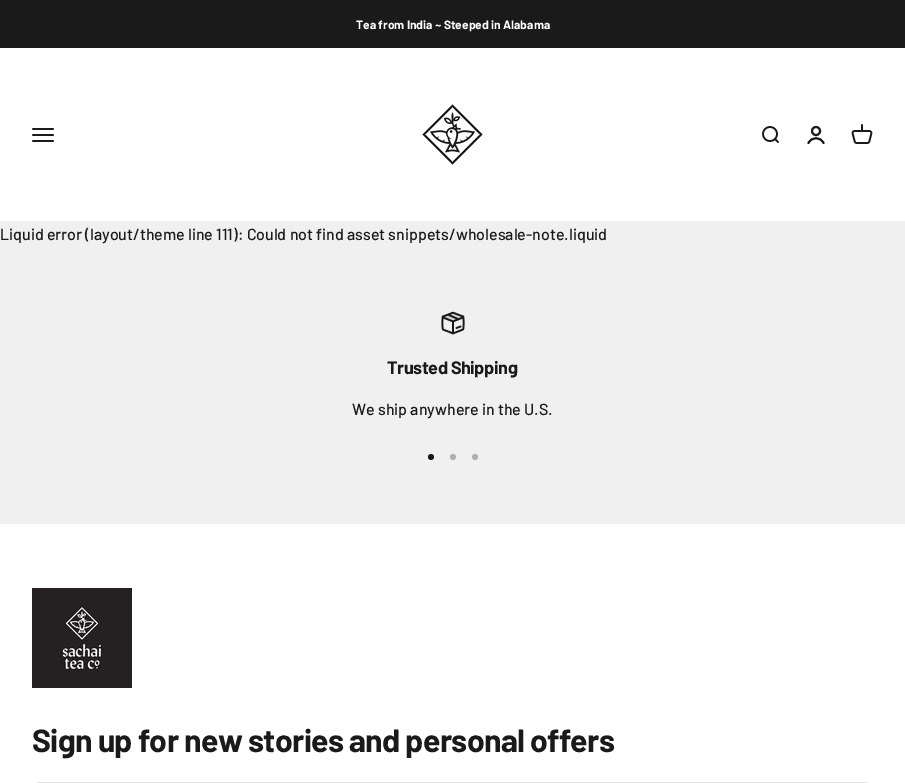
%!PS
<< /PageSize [905 783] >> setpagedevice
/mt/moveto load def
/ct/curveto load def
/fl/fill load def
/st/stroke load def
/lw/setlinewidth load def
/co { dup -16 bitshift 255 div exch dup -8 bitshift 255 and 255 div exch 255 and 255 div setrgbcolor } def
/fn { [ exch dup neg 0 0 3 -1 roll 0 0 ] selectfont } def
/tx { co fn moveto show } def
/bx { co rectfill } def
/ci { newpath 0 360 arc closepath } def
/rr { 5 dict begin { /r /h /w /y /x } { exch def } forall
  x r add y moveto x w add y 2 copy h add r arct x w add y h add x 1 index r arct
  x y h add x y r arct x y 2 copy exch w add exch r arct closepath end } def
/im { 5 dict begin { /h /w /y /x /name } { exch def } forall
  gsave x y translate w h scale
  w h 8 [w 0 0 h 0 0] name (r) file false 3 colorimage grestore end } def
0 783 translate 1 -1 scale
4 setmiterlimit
0 0 905 783 16#F0F0F0 bx
0 0 905 48 16#1A1A1A bx
0 48 905 173 16#FFFFFF bx
(media/1.raw) 32 128 22 14 im
(media/2.raw) 422 104 61 61 im
(media/3.raw) 762 126 17 17 im
16#1A1A1A co
2 lw
816 131 4 ci st
1 setlinecap
808.5 143 mt 811.5 136.5 820.5 136.5 823.5 143 ct st
(media/4.raw) 851 124 22 20 im
(media/5.raw) 441 311 24 24 im
431 457 3 ci fl
16#B0B0B0 co
453 457 3 ci fl
475 457 3 ci fl
0 524 905 259 16#FFFFFF bx
(media/6.raw) 32 588 100 100 im
16#E4E4E4 co
1 lw
0 setlinecap
32.5 782.5 840 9 7.5 rr st
(Tea from India ~ Steeped in Alabama) 356 29 /Barlow-Bold 12 16#FFFFFF tx
(Liquid error \(layout/theme line 111\): Could not find asset snippets/wholesale-note.liquid) 0 240 /Barlow-Medium 16 16#1A1A1A tx
/Barlow-Bold 18 fn
387 374 mt -.4 0 (Trusted Shipping) ashow
(We ship anywhere in the U.S.) 352 415 /Barlow-Medium 16 16#1A1A1A tx
/Barlow-Bold 32 fn
32 752 mt -.65 0 (Sign up for new stories and personal offers) ashow
showpage
